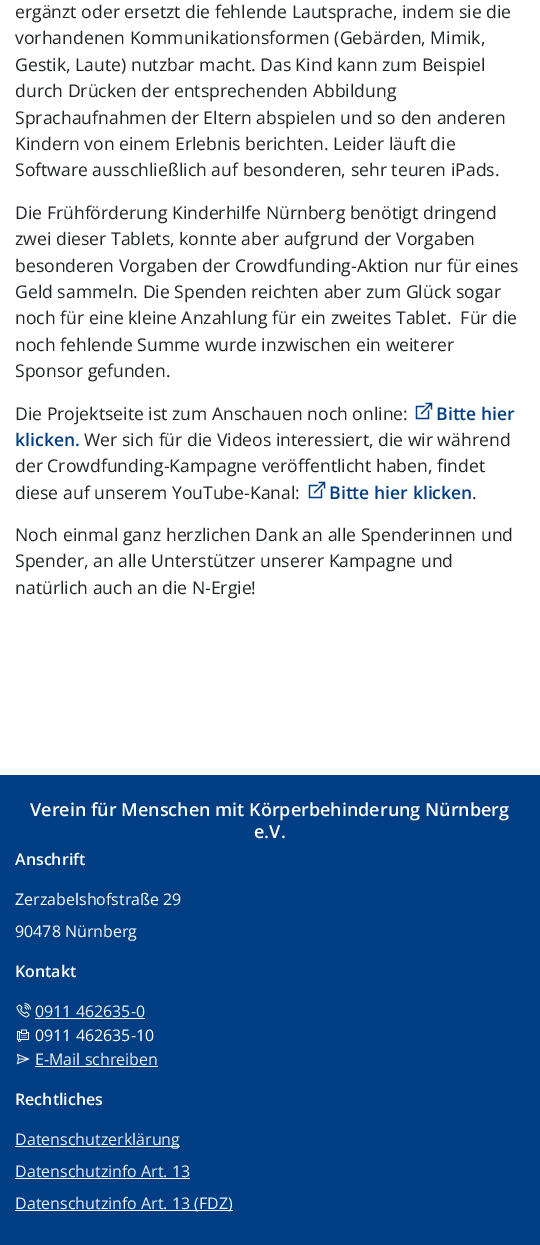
%!PS
<< /PageSize [540 1245] >> setpagedevice
/co { dup -16 bitshift 255 div exch dup -8 bitshift 255 and 255 div exch 255 and 255 div setrgbcolor } def
/fn { [ exch dup neg 0 0 3 -1 roll 0 0 ] selectfont } def
/tx { co fn moveto show } def
/bx { co rectfill } def
/im { 5 dict begin { /h /w /y /x /name } { exch def } forall
  gsave x y translate w h scale
  w h 8 [w 0 0 h 0 0] name (r) file false 3 colorimage grestore end } def
0 1245 translate 1 -1 scale
4 setmiterlimit
0 0 540 1245 16#FFFFFF bx
(media/1.raw) 415 402 18 18 im
(media/1.raw) 308 481 18 18 im
0 775 540 470 16#023E84 bx
(media/2.raw) 16 1003 15 15 im
35 1018 110 1 16#EEF3FB bx
(media/3.raw) 17 1029 12 13 im
(media/4.raw) 16 1053 14 12 im
35 1066 123 1 16#EEF3FB bx
15 1146 165 1 16#EEF3FB bx
15 1178 175 1 16#EEF3FB bx
15 1210 218 1 16#EEF3FB bx
(ergänzt oder ersetzt die fehlende Lautsprache, indem sie die) 15 18 /OpenSans-Regular 17.6 16#212529 tx
(vorhandenen Kommunikationsformen \(Gebärden, Mimik,) 15 44 /OpenSans-Regular 17.6 16#212529 tx
(Gestik, Laute\) nutzbar macht. Das Kind kann zum Beispiel) 15 71 /OpenSans-Regular 17.6 16#212529 tx
(durch Drücken der entsprechenden Abbildung) 15 97 /OpenSans-Regular 17.6 16#212529 tx
(Sprachaufnahmen der Eltern abspielen und so den anderen) 15 124 /OpenSans-Regular 17.6 16#212529 tx
(Kindern von einem Erlebnis berichten. Leider läuft die) 15 150 /OpenSans-Regular 17.6 16#212529 tx
(Software ausschließlich auf besonderen, sehr teuren iPads.) 15 176 /OpenSans-Regular 17.6 16#212529 tx
(Die Frühförderung Kinderhilfe Nürnberg benötigt dringend) 15 219 /OpenSans-Regular 17.6 16#212529 tx
(zwei dieser Tablets, konnte aber aufgrund der Vorgaben) 15 245 /OpenSans-Regular 17.6 16#212529 tx
(besonderen Vorgaben der Crowdfunding-Aktion nur für eines) 15 272 /OpenSans-Regular 17.6 16#212529 tx
(Geld sammeln. Die Spenden reichten aber zum Glück sogar) 15 298 /OpenSans-Regular 17.6 16#212529 tx
(noch für eine kleine Anzahlung für ein zweites Tablet.  Für die) 15 324 /OpenSans-Regular 17.6 16#212529 tx
(noch fehlende Summe wurde inzwischen ein weiterer) 15 351 /OpenSans-Regular 17.6 16#212529 tx
(Sponsor gefunden.) 15 377 /OpenSans-Regular 17.6 16#212529 tx
(Die Projektseite ist zum Anschauen noch online:) 15 420 /OpenSans-Regular 17.6 16#212529 tx
(Bitte hier) 436 420 /OpenSans-SemiBold 17.6 16#023E84 tx
(klicken.) 15 446 /OpenSans-SemiBold 17.6 16#023E84 tx
(Wer sich für die Videos interessiert, die wir während) 84 446 /OpenSans-Regular 17.6 16#212529 tx
(der Crowdfunding-Kampagne veröffentlicht haben, findet) 15 472 /OpenSans-Regular 17.6 16#212529 tx
(diese auf unserem YouTube-Kanal:) 15 499 /OpenSans-Regular 17.6 16#212529 tx
(Bitte hier klicken) 329 499 /OpenSans-SemiBold 17.6 16#023E84 tx
(.) 472 499 /OpenSans-Regular 17.6 16#212529 tx
(Noch einmal ganz herzlichen Dank an alle Spenderinnen und) 15 541 /OpenSans-Regular 17.6 16#212529 tx
(Spender, an alle Unterstützer unserer Kampagne und) 15 567 /OpenSans-Regular 17.6 16#212529 tx
(natürlich auch an die N-Ergie!) 15 594 /OpenSans-Regular 17.6 16#212529 tx
(Verein für Menschen mit Körperbehinderung Nürnberg) 30 816 /OpenSans-SemiBold 18 16#FFFFFF tx
(e.V.) 254 838 /OpenSans-SemiBold 18 16#FFFFFF tx
(Anschrift) 15 865 /OpenSans-SemiBold 16 16#FFFFFF tx
(Zerzabelshofstraße 29) 15 905 /OpenSans-Regular 16 16#FFFFFF tx
(90478 Nürnberg) 15 937 /OpenSans-Regular 16 16#FFFFFF tx
(Kontakt) 15 977 /OpenSans-SemiBold 16 16#FFFFFF tx
(0911 462635-0) 35 1017 /OpenSans-Regular 16 16#EEF3FB tx
(0911 462635-10) 35 1041 /OpenSans-Regular 16 16#FFFFFF tx
(E-Mail schreiben) 35 1065 /OpenSans-Regular 16 16#EEF3FB tx
(Rechtliches) 15 1105 /OpenSans-SemiBold 16 16#FFFFFF tx
(Datenschutzerklärung) 15 1145 /OpenSans-Regular 16 16#EEF3FB tx
(Datenschutzinfo Art. 13) 15 1177 /OpenSans-Regular 16 16#EEF3FB tx
(Datenschutzinfo Art. 13 \(FDZ\)) 15 1209 /OpenSans-Regular 16 16#EEF3FB tx
showpage
